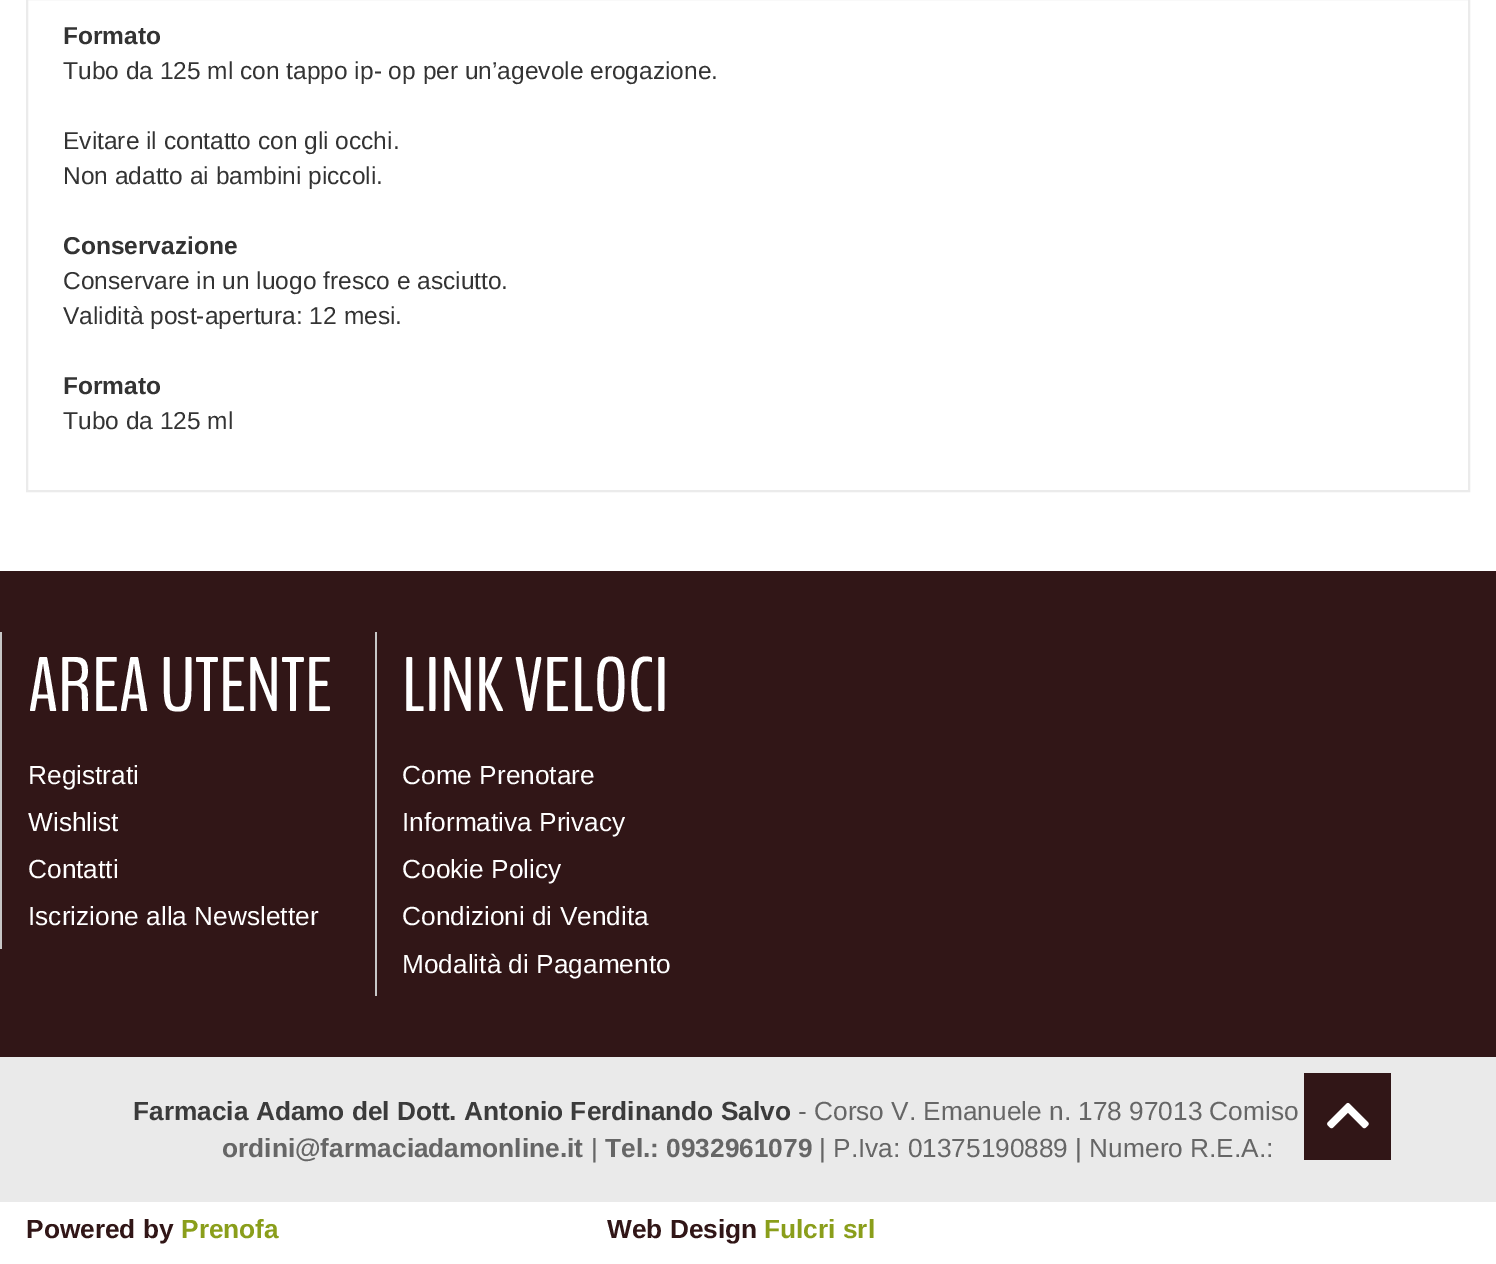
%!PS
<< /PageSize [1496 1264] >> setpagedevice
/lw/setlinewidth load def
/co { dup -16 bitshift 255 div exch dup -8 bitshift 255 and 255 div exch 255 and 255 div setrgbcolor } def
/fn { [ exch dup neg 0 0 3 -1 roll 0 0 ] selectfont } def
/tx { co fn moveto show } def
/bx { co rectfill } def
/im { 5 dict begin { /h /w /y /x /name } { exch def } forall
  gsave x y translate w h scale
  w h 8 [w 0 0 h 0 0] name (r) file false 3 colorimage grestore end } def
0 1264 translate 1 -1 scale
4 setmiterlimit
0 0 1496 1264 16#FFFFFF bx
16#EBEBEB co
2 lw
27 -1 1442 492 rectstroke
0 571 1496 486 16#311617 bx
0 632 2 317 16#C7C7C7 bx
375 632 2 364 16#C7C7C7 bx
0 1057 1496 145 16#EAEAEA bx
1304 1073 87 87 16#311617 bx
(media/1.raw) 1327 1102 42 27 im
(Formato) 63 44 /LiberationSans-Bold 24.5 16#333333 tx
(Tubo da 125 ml con tappo ip- op per un’agevole erogazione.) 63 79 /LiberationSans-Regular 24.5 16#333333 tx
(Evitare il contatto con gli occhi.) 63 149 /LiberationSans-Regular 24.5 16#333333 tx
(Non adatto ai bambini piccoli.) 63 184 /LiberationSans-Regular 24.5 16#333333 tx
(Conservazione) 63 254 /LiberationSans-Bold 24.5 16#333333 tx
(Conservare in un luogo fresco e asciutto.) 63 289 /LiberationSans-Regular 24.5 16#333333 tx
(Validità post-apertura: 12 mesi.) 63 324 /LiberationSans-Regular 24.5 16#333333 tx
(Formato) 63 394 /LiberationSans-Bold 24.5 16#333333 tx
(Tubo da 125 ml) 63 429 /LiberationSans-Regular 24.5 16#333333 tx
(AREA UTENTE) 28 711 /BenchNine-Regular 77 16#FFFFFF tx
(Registrati) 28 784 /LiberationSans-Regular 26.25 16#FFFFFF tx
(Wishlist) 28 831 /LiberationSans-Regular 26.25 16#FFFFFF tx
(Contatti) 28 878 /LiberationSans-Regular 26.25 16#FFFFFF tx
(Iscrizione alla Newsletter) 28 925 /LiberationSans-Regular 26.25 16#FFFFFF tx
(LINK VELOCI) 402 711 /BenchNine-Regular 77 16#FFFFFF tx
(Come Prenotare) 402 784 /LiberationSans-Regular 26.25 16#FFFFFF tx
(Informativa Privacy) 402 831 /LiberationSans-Regular 26.25 16#FFFFFF tx
(Cookie Policy) 402 878 /LiberationSans-Regular 26.25 16#FFFFFF tx
(Condizioni di Vendita) 402 925 /LiberationSans-Regular 26.25 16#FFFFFF tx
(Modalità di Pagamento) 402 973 /LiberationSans-Regular 26.25 16#FFFFFF tx
(Farmacia Adamo del Dott. Antonio Ferdinando Salvo) 133 1120 /LiberationSans-Bold 26.25 16#3B3B3B tx
(- Corso V. Emanuele n. 178 97013 Comiso) 798 1120 /LiberationSans-Regular 26.25 16#666666 tx
(ordini@farmaciadamonline.it) 222 1157 /LiberationSans-Bold 26.25 16#666666 tx
(|) 591 1157 /LiberationSans-Regular 26.25 16#666666 tx
(Tel.: 0932961079) 605 1157 /LiberationSans-Bold 26.25 16#666666 tx
(| P.Iva: 01375190889 | Numero R.E.A.:) 819 1157 /LiberationSans-Regular 26.25 16#666666 tx
(Powered by) 26 1238 /LiberationSans-Bold 26.25 16#311617 tx
(Prenofa) 181 1238 /LiberationSans-Bold 26.25 16#8A9E1B tx
(Web Design) 607 1238 /LiberationSans-Bold 26.25 16#311617 tx
(Fulcri srl) 764 1238 /LiberationSans-Bold 26.25 16#8A9E1B tx
showpage
